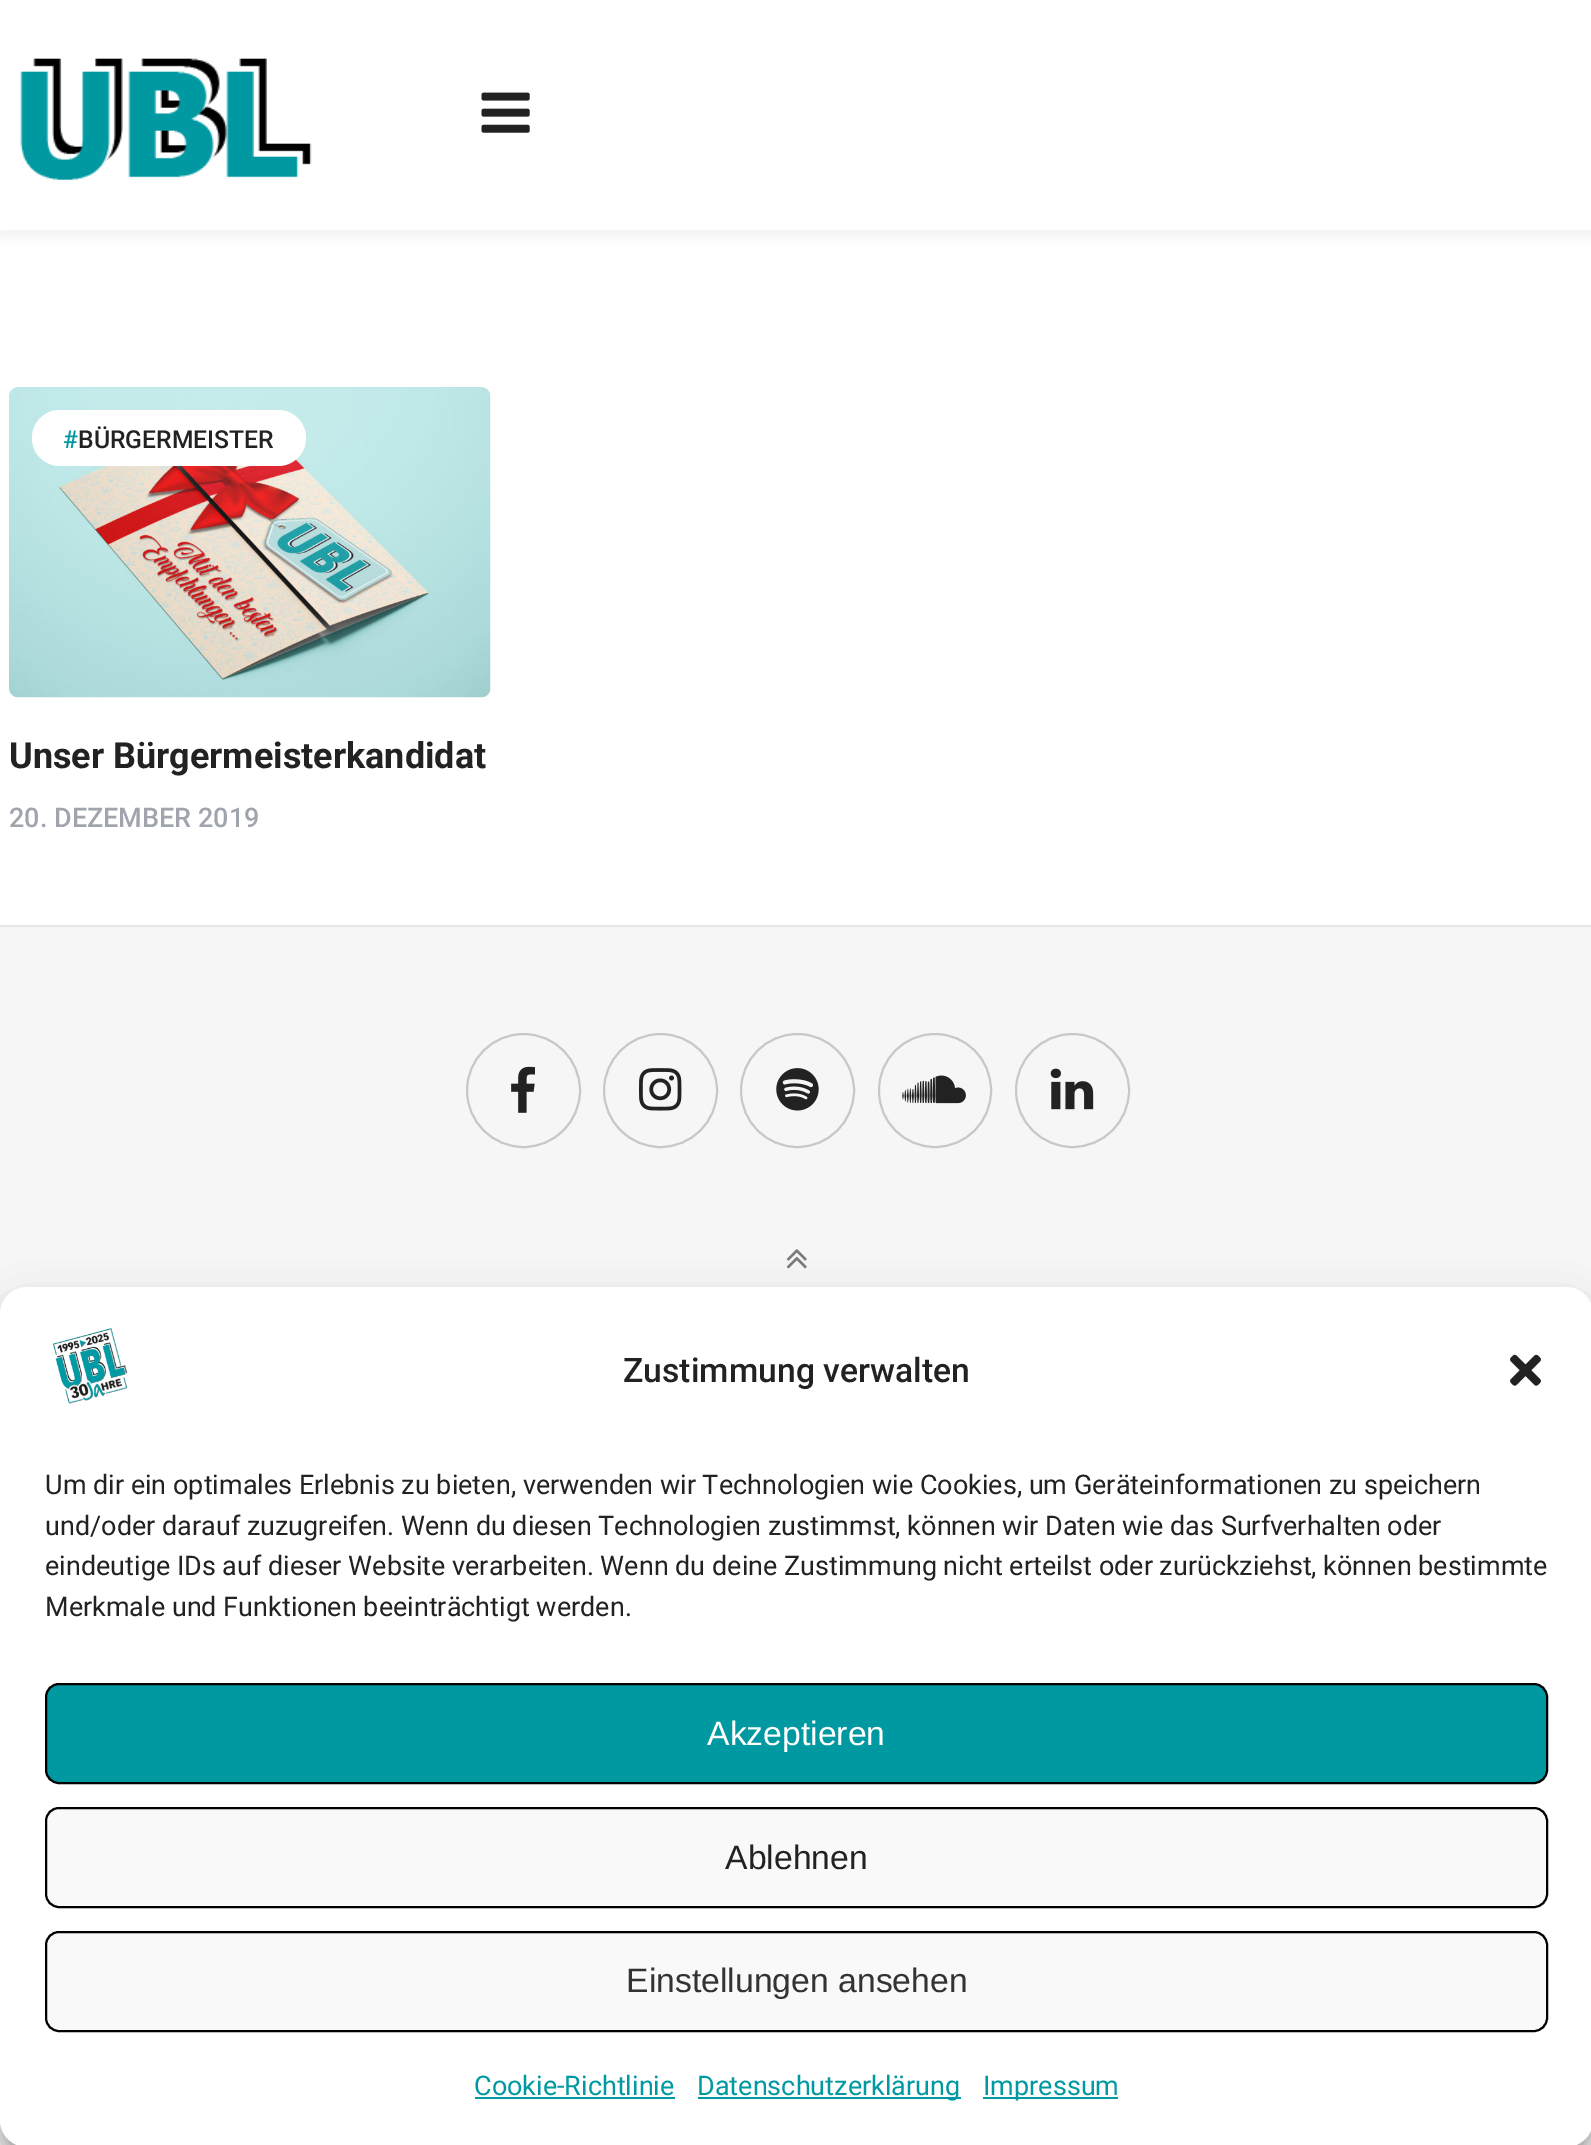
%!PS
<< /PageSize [1591 2145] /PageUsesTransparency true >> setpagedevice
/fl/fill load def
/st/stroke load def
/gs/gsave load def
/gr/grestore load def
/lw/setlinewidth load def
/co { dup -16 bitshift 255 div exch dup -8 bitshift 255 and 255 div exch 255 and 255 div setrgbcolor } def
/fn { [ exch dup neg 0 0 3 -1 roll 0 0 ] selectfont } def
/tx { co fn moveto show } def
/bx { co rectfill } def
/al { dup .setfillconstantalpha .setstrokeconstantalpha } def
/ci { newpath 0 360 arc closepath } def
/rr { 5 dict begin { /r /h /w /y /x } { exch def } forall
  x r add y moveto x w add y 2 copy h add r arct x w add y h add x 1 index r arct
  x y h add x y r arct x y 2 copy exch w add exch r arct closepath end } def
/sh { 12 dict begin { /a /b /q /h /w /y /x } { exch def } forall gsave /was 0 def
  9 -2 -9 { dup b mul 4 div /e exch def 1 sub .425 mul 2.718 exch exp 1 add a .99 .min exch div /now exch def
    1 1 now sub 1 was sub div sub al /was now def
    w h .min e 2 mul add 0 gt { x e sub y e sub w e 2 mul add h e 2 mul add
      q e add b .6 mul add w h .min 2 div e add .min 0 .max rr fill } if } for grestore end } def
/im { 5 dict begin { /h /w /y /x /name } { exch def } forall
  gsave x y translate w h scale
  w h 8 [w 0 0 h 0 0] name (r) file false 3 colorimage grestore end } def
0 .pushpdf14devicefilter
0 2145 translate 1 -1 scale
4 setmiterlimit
0 0 1591 2145 16#FFFFFF bx
16#000000 co
0 7 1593 229 0 7 .06 sh
0 0 1591 230 16#FFFFFF bx
(media/1.raw) 20 58 292 122 im
(media/2.raw) 481 92 49 41 im
(media/3.raw) 9 387 482 311 im
32 410 274 56 28 rr fl
0 927 1591 387 16#F6F6F6 bx
0 925 1591 2 16#E6E6E6 bx
16#C8C8C8 co
2 lw
523.5 1090.5 56.5 ci st
(media/4.raw) 511 1066 24 47 im
660.5 1090.5 56.5 ci st
(media/5.raw) 639 1068 43 43 im
797.5 1090.5 56.5 ci st
(media/6.raw) 776 1068 43 43 im
879 1034 112 113 56 rr st
(media/7.raw) 902 1075 64 29 im
1072.5 1090.5 56.5 ci st
(media/8.raw) 1050 1068 44 42 im
(media/9.raw) 786 1249 21 20 im
16#000000 co
0 1301 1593 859 27 7 .23 sh
0 1310 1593 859 27 22.5 .19 sh
16#FFFFFF co
0 1287 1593 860 27 rr fl
(media/10.raw) 53 1328 75 76 im
(media/11.raw) 1510 1354 31 32 im
16#0099A1 co
46 1684 1501 99 13 rr gs fl gr
16#000000 co
st
16#F9F9F9 co
46 1808 1501 99 13 rr gs fl gr
16#000000 co
st
16#F9F9F9 co
46 1932 1501 99 13 rr gs fl gr
16#000000 co
st
475 2097 200 2 16#0099A1 bx
698 2097 263 2 16#0099A1 bx
983 2097 135 2 16#0099A1 bx
(#) 63 448 /Roboto-Medium 24.75 16#0099A1 tx
(BÜRGERMEISTER) 78 448 /Roboto-Medium 24.75 16#222222 tx
(Unser Bürgermeisterkandidat) 9 768 /Roboto-Bold 36 16#222222 tx
(20. DEZEMBER 2019) 9 827 /Roboto-Medium 27 16#A0A4AD tx
(Zustimmung verwalten) 623 1382 /Roboto-Medium 33.75 16#222222 tx
(Um dir ein optimales Erlebnis zu bieten, verwenden wir Technologien wie Cookies, um Geräteinformationen zu speichern) 45 1494 /Roboto-Regular 27 16#222222 tx
(und/oder darauf zuzugreifen. Wenn du diesen Technologien zustimmst, können wir Daten wie das Surfverhalten oder) 45 1535 /Roboto-Regular 27 16#222222 tx
(eindeutige IDs auf dieser Website verarbeiten. Wenn du deine Zustimmung nicht erteilst oder zurückziehst, können bestimmte) 45 1575 /Roboto-Regular 27 16#222222 tx
(Merkmale und Funktionen beeinträchtigt werden.) 45 1616 /Roboto-Regular 27 16#222222 tx
(Akzeptieren) 707 1745 /LiberationSans-Regular 33.75 16#FFFFFF tx
(Ablehnen) 725 1869 /LiberationSans-Regular 33.75 16#222222 tx
(Einstellungen ansehen) 626 1992 /LiberationSans-Regular 33.75 16#333333 tx
(Cookie-Richtlinie) 474 2095 /Roboto-Regular 27 16#0099A1 tx
(Datenschutzerklärung) 697 2095 /Roboto-Regular 27 16#0099A1 tx
(Impressum) 983 2095 /Roboto-Regular 27 16#0099A1 tx
.poppdf14devicefilter showpage
